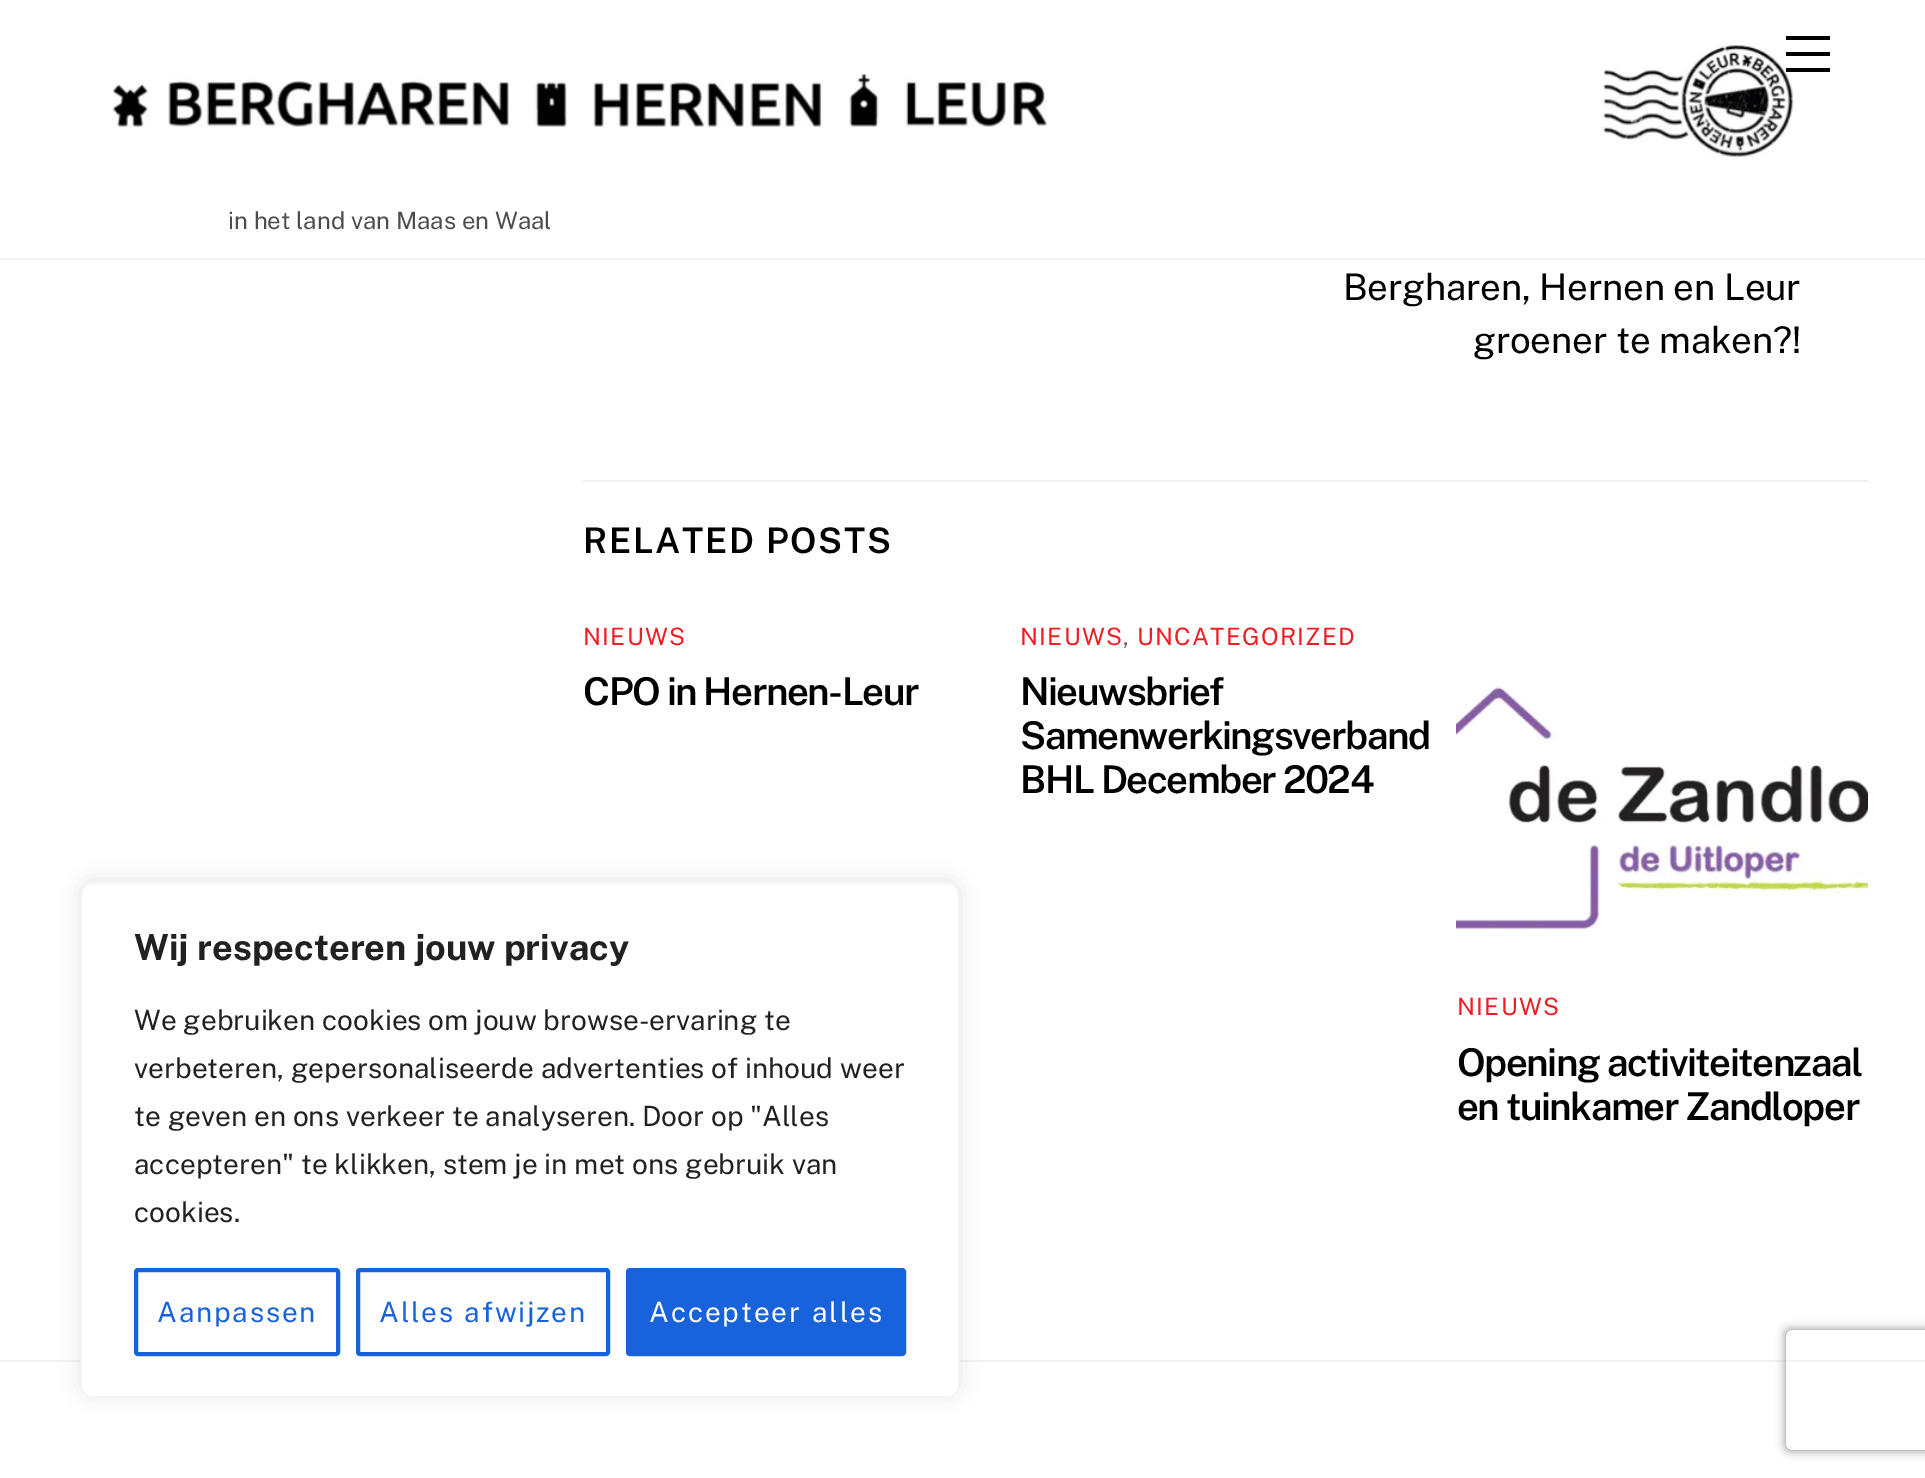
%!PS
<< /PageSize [1925 1478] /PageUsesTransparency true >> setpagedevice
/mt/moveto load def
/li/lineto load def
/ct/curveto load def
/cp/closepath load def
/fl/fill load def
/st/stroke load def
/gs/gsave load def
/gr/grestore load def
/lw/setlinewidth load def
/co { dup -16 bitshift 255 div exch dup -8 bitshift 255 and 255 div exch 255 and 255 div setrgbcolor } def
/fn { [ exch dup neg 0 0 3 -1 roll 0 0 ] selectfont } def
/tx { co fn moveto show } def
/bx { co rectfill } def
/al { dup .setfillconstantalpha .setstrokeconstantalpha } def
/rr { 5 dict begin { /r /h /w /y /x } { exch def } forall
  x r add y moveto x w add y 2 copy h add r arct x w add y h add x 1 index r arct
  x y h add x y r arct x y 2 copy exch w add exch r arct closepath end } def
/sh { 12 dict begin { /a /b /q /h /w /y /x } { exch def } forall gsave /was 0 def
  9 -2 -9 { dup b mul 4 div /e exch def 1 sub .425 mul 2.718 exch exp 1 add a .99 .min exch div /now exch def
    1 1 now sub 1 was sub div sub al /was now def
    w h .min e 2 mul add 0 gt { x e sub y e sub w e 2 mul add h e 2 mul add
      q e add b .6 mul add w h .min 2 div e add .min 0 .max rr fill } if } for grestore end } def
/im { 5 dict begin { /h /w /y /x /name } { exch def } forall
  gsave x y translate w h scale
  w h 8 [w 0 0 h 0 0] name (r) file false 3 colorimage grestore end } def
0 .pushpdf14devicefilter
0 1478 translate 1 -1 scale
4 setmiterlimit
0 0 1925 1478 16#FFFFFF bx
0 258 1925 2 16#F2F2F2 bx
(media/1.raw) 111 45 1683 115 im
1786 68 44 4 16#000000 bx
1786 36 44 4 16#000000 bx
1786 52 44 4 16#000000 bx
582 480 1286 2 16#F2F2F2 bx
(media/2.raw) 1456 686 412 244 im
0 1360 1925 2 16#F2F2F2 bx
16#ACABAB co
80 880 880 516 12 10 .3 sh
16#FFFFFF co
81 883 878 514 11 rr gs fl gr
16#F4F4F4 co
2 lw
st
16#1863DC co
4 lw
136 1270 202 84 2 rr st
358 1270 250 84 2 rr st
628 1270 276 84 2 rr gs fl gr
st
gs
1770 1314 mt 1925 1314 li 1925 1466 li 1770 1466 li cp 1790 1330 mt 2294 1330 li 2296 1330 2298 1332 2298 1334 ct 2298 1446 li 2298 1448 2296 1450 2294 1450 ct 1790 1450 li 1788 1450 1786 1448 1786 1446 ct 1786 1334 li 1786 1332 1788 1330 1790 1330 ct cp eoclip newpath
16#808080 co
1786 1330 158 120 4 5 1 sh
gr
(in het land van Maas en Waal) 228 229 /PublicSans-Regular 24 16#4D4D4D tx
/PublicSans-Regular 36.75 fn
16#000000 co
1343 300 mt -.2 0 (Bergharen, Hernen en Leur) ashow
1473 353 mt -.2 0 (groener te maken?!) ashow
/PublicSans-SemiBold 35.25 fn
583 553 mt 1.75 0 (RELATED POSTS) ashow
/PublicSans-Regular 24 fn
16#ED1E24 co
583 645 mt 1.25 0 (NIEUWS) ashow
/PublicSans-SemiBold 38.4 fn
16#000000 co
583 705 mt -1.5 0 (CPO in Hernen-Leur) ashow
/PublicSans-Regular 24 fn
16#ED1E24 co
1020 645 mt 1.25 0 (NIEUWS) ashow
16#666666 co
1123 645 mt 1.25 0 (,) ashow
16#ED1E24 co
1137 645 mt 1.25 0 (UNCATEGORIZED) ashow
/PublicSans-SemiBold 38.4 fn
16#000000 co
1020 705 mt -1.5 0 (Nieuwsbrief) ashow
1020 749 mt -1.5 0 (Samenwerkingsverband) ashow
1020 793 mt -1.5 0 (BHL December 2024) ashow
/PublicSans-Regular 24 fn
16#ED1E24 co
1457 1015 mt 1.25 0 (NIEUWS) ashow
/PublicSans-SemiBold 38.4 fn
16#000000 co
1457 1076 mt -1.5 0 (Opening activiteitenzaal) ashow
1457 1120 mt -1.5 0 (en tuinkamer Zandloper) ashow
(Wij respecteren jouw privacy) 134 960 /PublicSans-Bold 36 16#212121 tx
(We gebruiken cookies om jouw browse-ervaring te) 134 1030 /PublicSans-Regular 28 16#212121 tx
(verbeteren, gepersonaliseerde advertenties of inhoud weer) 134 1078 /PublicSans-Regular 28 16#212121 tx
(te geven en ons verkeer te analyseren. Door op "Alles) 134 1126 /PublicSans-Regular 28 16#212121 tx
(accepteren" te klikken, stem je in met ons gebruik van) 134 1174 /PublicSans-Regular 28 16#212121 tx
(cookies.) 134 1222 /PublicSans-Regular 28 16#212121 tx
16#1863DC co
157 1322 mt 1.8 0 (Aanpassen) ashow
379 1322 mt 1 0 32 1.8 0 (Alles afwijzen) awidthshow
16#FFFFFF co
649 1322 mt 2 0 32 1.8 0 (Accepteer alles) awidthshow
.poppdf14devicefilter showpage
